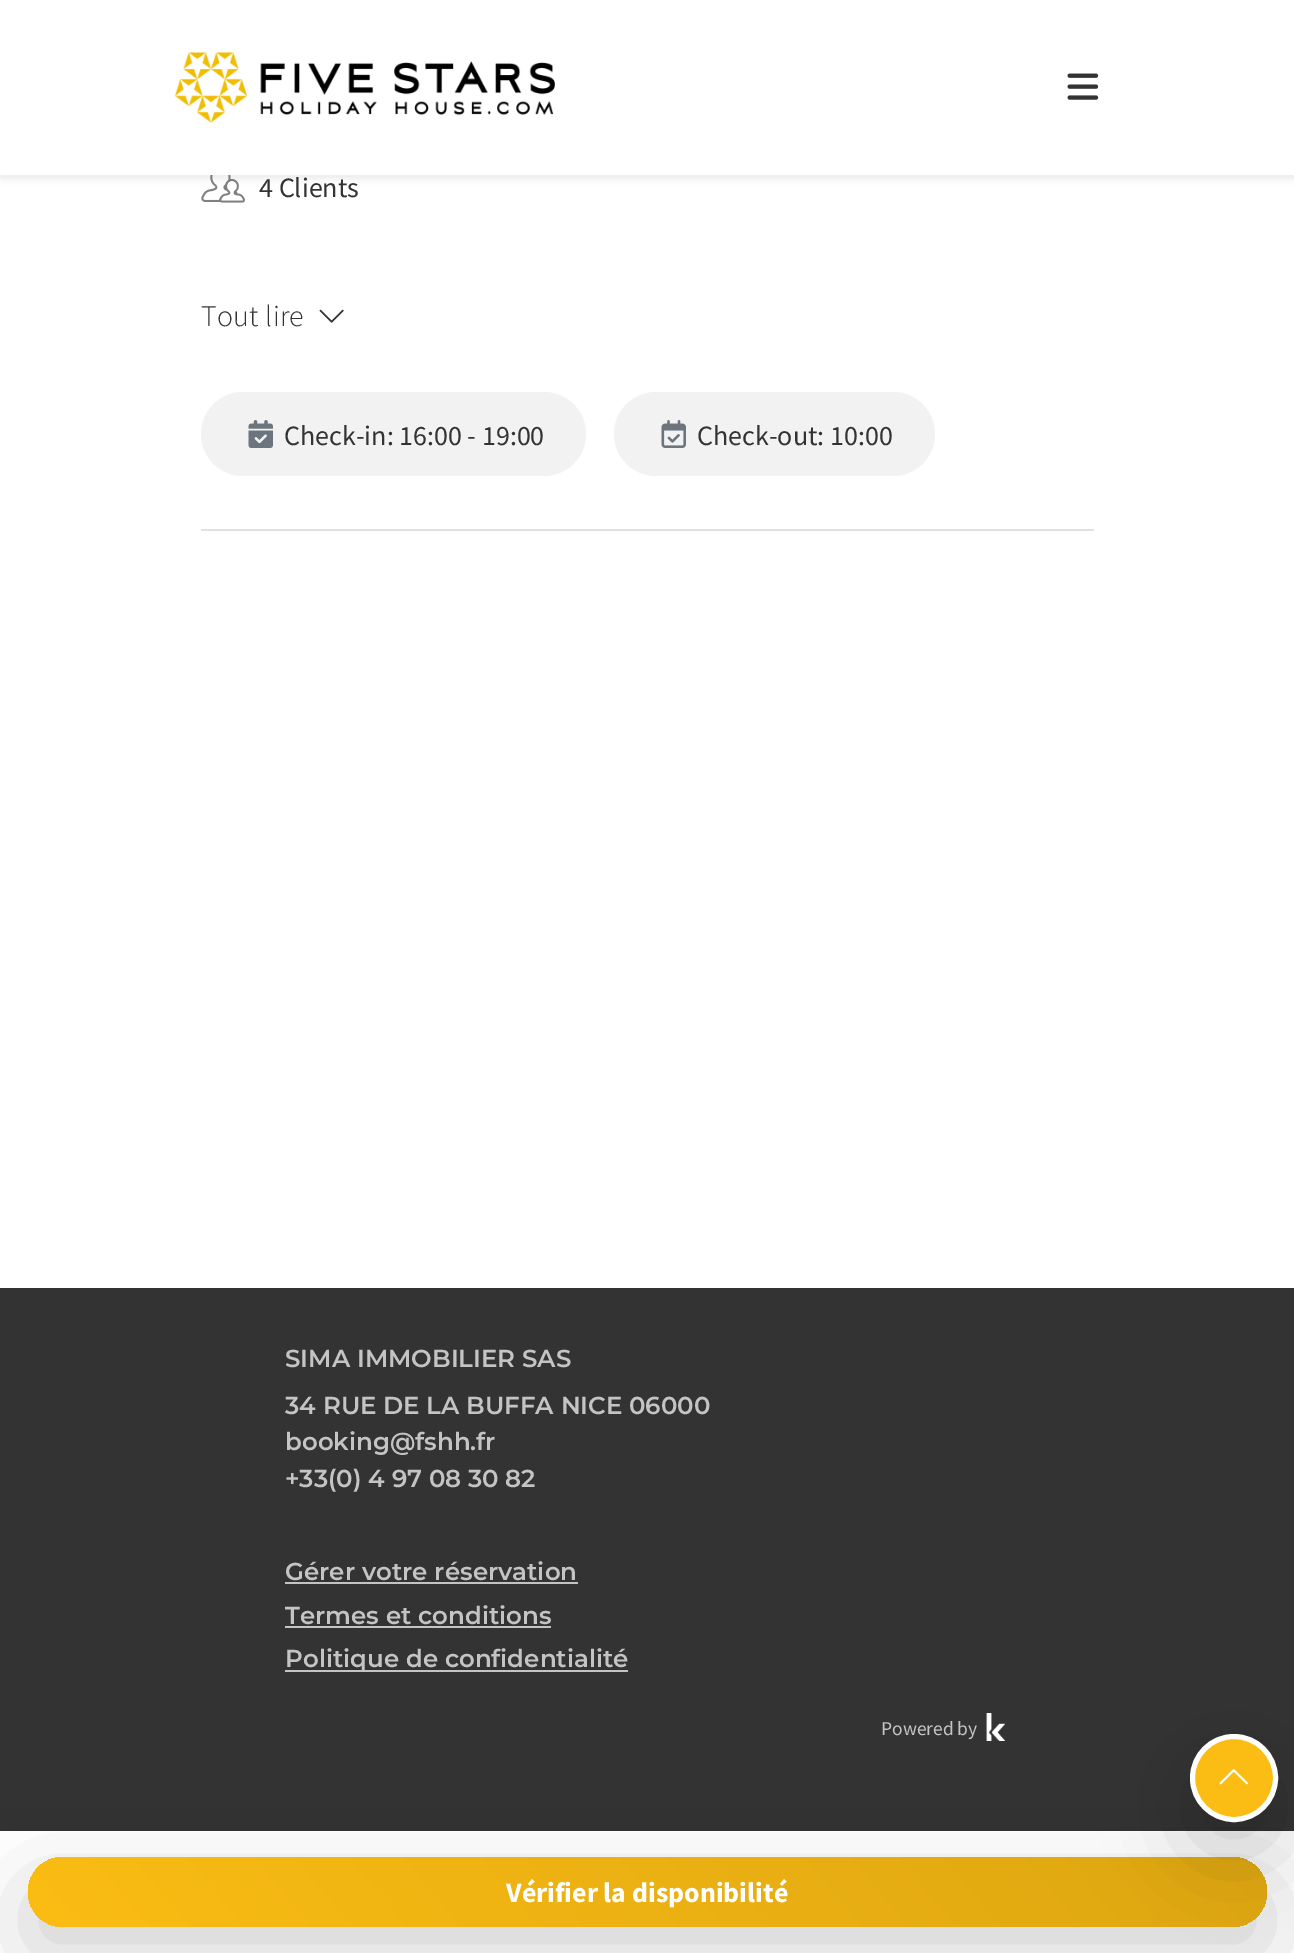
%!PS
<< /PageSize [1294 1953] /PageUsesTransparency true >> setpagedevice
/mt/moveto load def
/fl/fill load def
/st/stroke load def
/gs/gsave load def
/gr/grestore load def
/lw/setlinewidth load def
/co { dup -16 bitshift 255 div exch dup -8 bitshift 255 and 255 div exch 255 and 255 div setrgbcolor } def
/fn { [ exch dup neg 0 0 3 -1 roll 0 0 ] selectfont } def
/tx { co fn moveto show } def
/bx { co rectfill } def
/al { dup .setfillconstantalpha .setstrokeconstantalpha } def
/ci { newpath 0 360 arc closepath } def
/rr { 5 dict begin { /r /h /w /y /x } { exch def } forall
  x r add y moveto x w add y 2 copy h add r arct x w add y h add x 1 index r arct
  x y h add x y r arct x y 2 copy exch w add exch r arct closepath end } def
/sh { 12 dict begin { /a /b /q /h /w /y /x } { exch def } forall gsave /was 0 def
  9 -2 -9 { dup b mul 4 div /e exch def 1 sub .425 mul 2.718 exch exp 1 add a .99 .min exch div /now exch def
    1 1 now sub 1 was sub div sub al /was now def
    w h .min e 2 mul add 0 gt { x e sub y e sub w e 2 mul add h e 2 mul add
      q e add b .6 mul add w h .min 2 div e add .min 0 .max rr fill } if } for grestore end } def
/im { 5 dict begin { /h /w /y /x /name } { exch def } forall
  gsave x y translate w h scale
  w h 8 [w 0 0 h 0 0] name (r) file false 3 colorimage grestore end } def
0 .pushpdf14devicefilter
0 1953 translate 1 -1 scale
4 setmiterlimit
0 0 1294 1953 16#FFFFFF bx
(media/3.raw) 201 175 44 28 im
16#000000 co
0 4 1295 175 0 3.5 .07 sh
0 0 1294 175 16#FFFFFF bx
(media/1.raw) 175 52 380 71 im
(media/2.raw) 1067 73 32 27 im
201 529 893 2 16#E1E1E1 bx
(media/4.raw) 319 309 25 14 im
16#F2F2F2 co
201 392 385 84 42 rr fl
(media/5.raw) 248 420 25 28 im
614 392 321 84 42 rr fl
(media/6.raw) 661 420 25 28 im
0 1288 1294 543 16#333333 bx
(media/7.raw) 986 1713 20 28 im
16#000000 co
0 1859 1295 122 0 42 .18 sh
0 1831 1294 122 16#FFFFFF bx
16#000000 co
28 1885 1239 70 35 42 .18 sh
gs 28 1857 1239 70 35 rr clip newpath
<< /ShadingType 2 /ColorSpace /DeviceRGB /Coords [267 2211 1028 1572] /Extend [true true] /Function << /FunctionType 2 /Domain [0 1] /C0 [.984 .741 .075] /C1 [.867 .651 .067] /N 1 >> >> shfill gr
285 1582 293 2 16#C4C4C4 bx
285 1626 266 2 16#C4C4C4 bx
285 1670 343 2 16#C4C4C4 bx
16#000000 co
1190 1762 88 88 44 42 .18 sh
16#FBBD13 co
1234 1778 41.5 ci gs fl gr
16#FFFFFF co
5 lw
st
(media/8.raw) 1219 1769 29 16 im
(4 Clients) 259 197 /SourceSansPro-Regular 28 16#333333 tx
/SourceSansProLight-Light 30 fn
201 326 mt .25 0 (Tout lire) ashow
(Check-in: 16:00 - 19:00) 284 445 /SourceSansPro-Regular 28 16#333333 tx
(Check-out: 10:00) 697 445 /SourceSansPro-Regular 28 16#333333 tx
(Vérifier la disponibilité) 506 1902 /SourceSansPro-Bold 28 16#FFFFFF tx
(SIMA IMMOBILIER SAS) 285 1367 /Montserrat-Thin 24.5 16#C4C4C4 tx
(34 RUE DE LA BUFFA NICE 06000) 285 1414 /Montserrat-Thin 24.5 16#C4C4C4 tx
(booking@fshh.fr) 285 1450 /Montserrat-Thin 24.5 16#C4C4C4 tx
(+33\(0\) 4 97 08 30 82) 285 1487 /Montserrat-Thin 24.5 16#C4C4C4 tx
(Gérer votre réservation) 285 1580 /Montserrat-Thin 24.5 16#C4C4C4 tx
(Termes et conditions) 285 1624 /Montserrat-Thin 24.5 16#C4C4C4 tx
(Politique de confidentialité) 285 1667 /Montserrat-Thin 24.5 16#C4C4C4 tx
(Powered by) 881 1735 /SourceSansPro-Regular 19.5 16#C4C4C4 tx
.poppdf14devicefilter showpage
